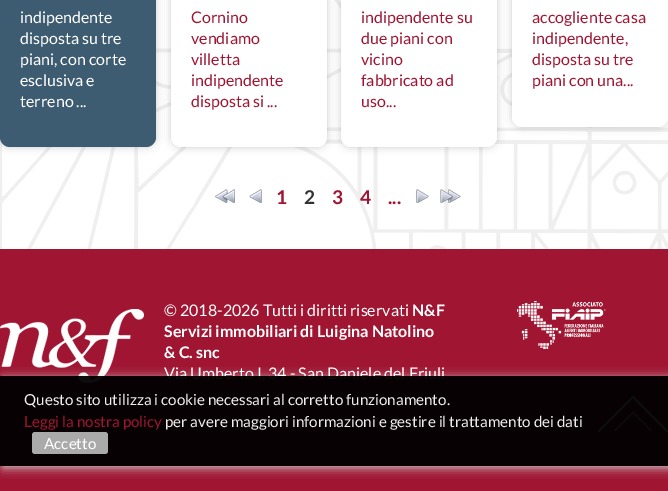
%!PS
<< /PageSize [668 491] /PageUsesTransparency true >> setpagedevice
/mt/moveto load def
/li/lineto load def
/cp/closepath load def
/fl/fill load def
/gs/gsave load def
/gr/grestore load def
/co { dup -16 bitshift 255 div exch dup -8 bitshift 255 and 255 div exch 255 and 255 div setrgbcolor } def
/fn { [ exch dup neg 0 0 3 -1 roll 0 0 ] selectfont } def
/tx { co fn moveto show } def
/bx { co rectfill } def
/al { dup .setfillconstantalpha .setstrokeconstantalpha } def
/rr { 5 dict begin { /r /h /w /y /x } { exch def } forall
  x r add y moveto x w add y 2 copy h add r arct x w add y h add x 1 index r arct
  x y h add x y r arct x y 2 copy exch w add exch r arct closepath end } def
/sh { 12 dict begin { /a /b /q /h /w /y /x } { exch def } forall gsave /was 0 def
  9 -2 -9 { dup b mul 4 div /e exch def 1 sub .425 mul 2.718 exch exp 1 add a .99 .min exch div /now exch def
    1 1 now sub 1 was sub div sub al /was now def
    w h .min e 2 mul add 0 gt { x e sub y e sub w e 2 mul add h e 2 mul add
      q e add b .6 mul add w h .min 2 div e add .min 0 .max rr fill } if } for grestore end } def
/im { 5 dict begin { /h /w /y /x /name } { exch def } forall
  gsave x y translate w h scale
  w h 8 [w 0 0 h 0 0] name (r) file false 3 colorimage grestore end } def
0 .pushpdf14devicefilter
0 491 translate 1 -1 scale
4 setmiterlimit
0 0 668 491 16#FFFFFF bx
(media/1.raw) 0 0 668 249 im
16#000000 co
0 -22 156 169 10 4 .2 sh
16#3E5C71 co
0 -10 156 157 10 rr fl
16#000000 co
171 -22 156 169 10 4 .2 sh
16#FFFFFF co
171 -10 156 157 10 rr fl
16#000000 co
341 -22 156 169 10 4 .2 sh
16#FFFFFF co
341 -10 156 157 10 rr fl
16#000000 co
512 -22 156 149 10 4 .2 sh
16#FFFFFF co
512 -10 156 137 10 rr fl
(media/2.raw) 215 189 20 14 im
(media/3.raw) 249 189 13 14 im
(media/4.raw) 416 189 13 14 im
(media/5.raw) 440 189 21 14 im
0 249 668 242 16#9F1532 bx
(media/6.raw) 0 309 144 74 im
(media/7.raw) 517 301 89 48 im
16#FFFFFF co
599 432.5 mt 597.5 431 li 633 395.5 li 634.5 397 li cp fl
667 432.5 mt 631.5 397 li 633 395.5 li 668.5 431 li cp fl
16#D9A1AD co
615.5 431.5 mt 614 430 li 633 411 li 634.5 412.5 li cp fl
650.5 431.5 mt 631.5 412.5 li 633 411 li 652 430 li cp fl
gs
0 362 mt 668 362 li 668 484 li 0 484 li cp 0 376 mt 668 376 li 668 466 li 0 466 li cp eoclip newpath
16#CCCCCC co
3 378 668 90 0 5 1 sh
gr
(indipendente) 20 23 /Lato-Regular 16 16#FFFFFF tx
(disposta su tre) 20 44 /Lato-Regular 16 16#FFFFFF tx
(piani, con corte) 20 65 /Lato-Regular 16 16#FFFFFF tx
(esclusiva e) 20 86 /Lato-Regular 16 16#FFFFFF tx
(terreno ...) 20 107 /Lato-Regular 16 16#FFFFFF tx
(Cornino) 191 23 /Lato-Regular 16 16#9F1532 tx
(vendiamo) 191 44 /Lato-Regular 16 16#9F1532 tx
(villetta) 191 65 /Lato-Regular 16 16#9F1532 tx
(indipendente) 191 86 /Lato-Regular 16 16#9F1532 tx
(disposta si ...) 191 107 /Lato-Regular 16 16#9F1532 tx
(indipendente su) 361 23 /Lato-Regular 16 16#9F1532 tx
(due piani con) 361 44 /Lato-Regular 16 16#9F1532 tx
(vicino) 361 65 /Lato-Regular 16 16#9F1532 tx
(fabbricato ad) 361 86 /Lato-Regular 16 16#9F1532 tx
(uso...) 361 107 /Lato-Regular 16 16#9F1532 tx
(accogliente casa) 532 23 /Lato-Regular 16 16#9F1532 tx
(indipendente,) 532 44 /Lato-Regular 16 16#9F1532 tx
(disposta su tre) 532 65 /Lato-Regular 16 16#9F1532 tx
(piani con una...) 532 86 /Lato-Regular 16 16#9F1532 tx
(1) 276 204 /Lato-Bold 19 16#9F1532 tx
(2) 304 204 /Lato-Bold 19 16#333333 tx
(3) 332 204 /Lato-Bold 19 16#9F1532 tx
(4) 360 204 /Lato-Bold 19 16#9F1532 tx
(...) 388 204 /Lato-Bold 19 16#9F1532 tx
(© 2018-2026 Tutti i diritti riservati) 164 316 /Lato-Regular 16 16#FFFFFF tx
(N&F) 412 316 /Lato-Bold 16 16#FFFFFF tx
(Servizi immobiliari di Luigina Natolino) 164 337 /Lato-Bold 16 16#FFFFFF tx
(& C. snc) 164 358 /Lato-Bold 16 16#FFFFFF tx
(Via Umberto I, 34 - San Daniele del Friuli) 164 379 /Lato-Regular 16 16#FFFFFF tx
0.95 al
0 376 668 90 16#000000 bx
1 al
(Questo sito utilizza i cookie necessari al corretto funzionamento.) 24 405 /Lato-Regular 15.2 16#EEEEEE tx
(Leggi la nostra policy) 24 427 /Lato-Regular 15.2 16#9F1532 tx
(per avere maggiori informazioni e gestire il trattamento dei dati) 165 427 /Lato-Regular 15.2 16#EEEEEE tx
16#AAAAAA co
32 432 76 22 3 rr fl
(Accetto) 44 449 /Lato-Regular 15.2 16#FFFFFF tx
.poppdf14devicefilter showpage
